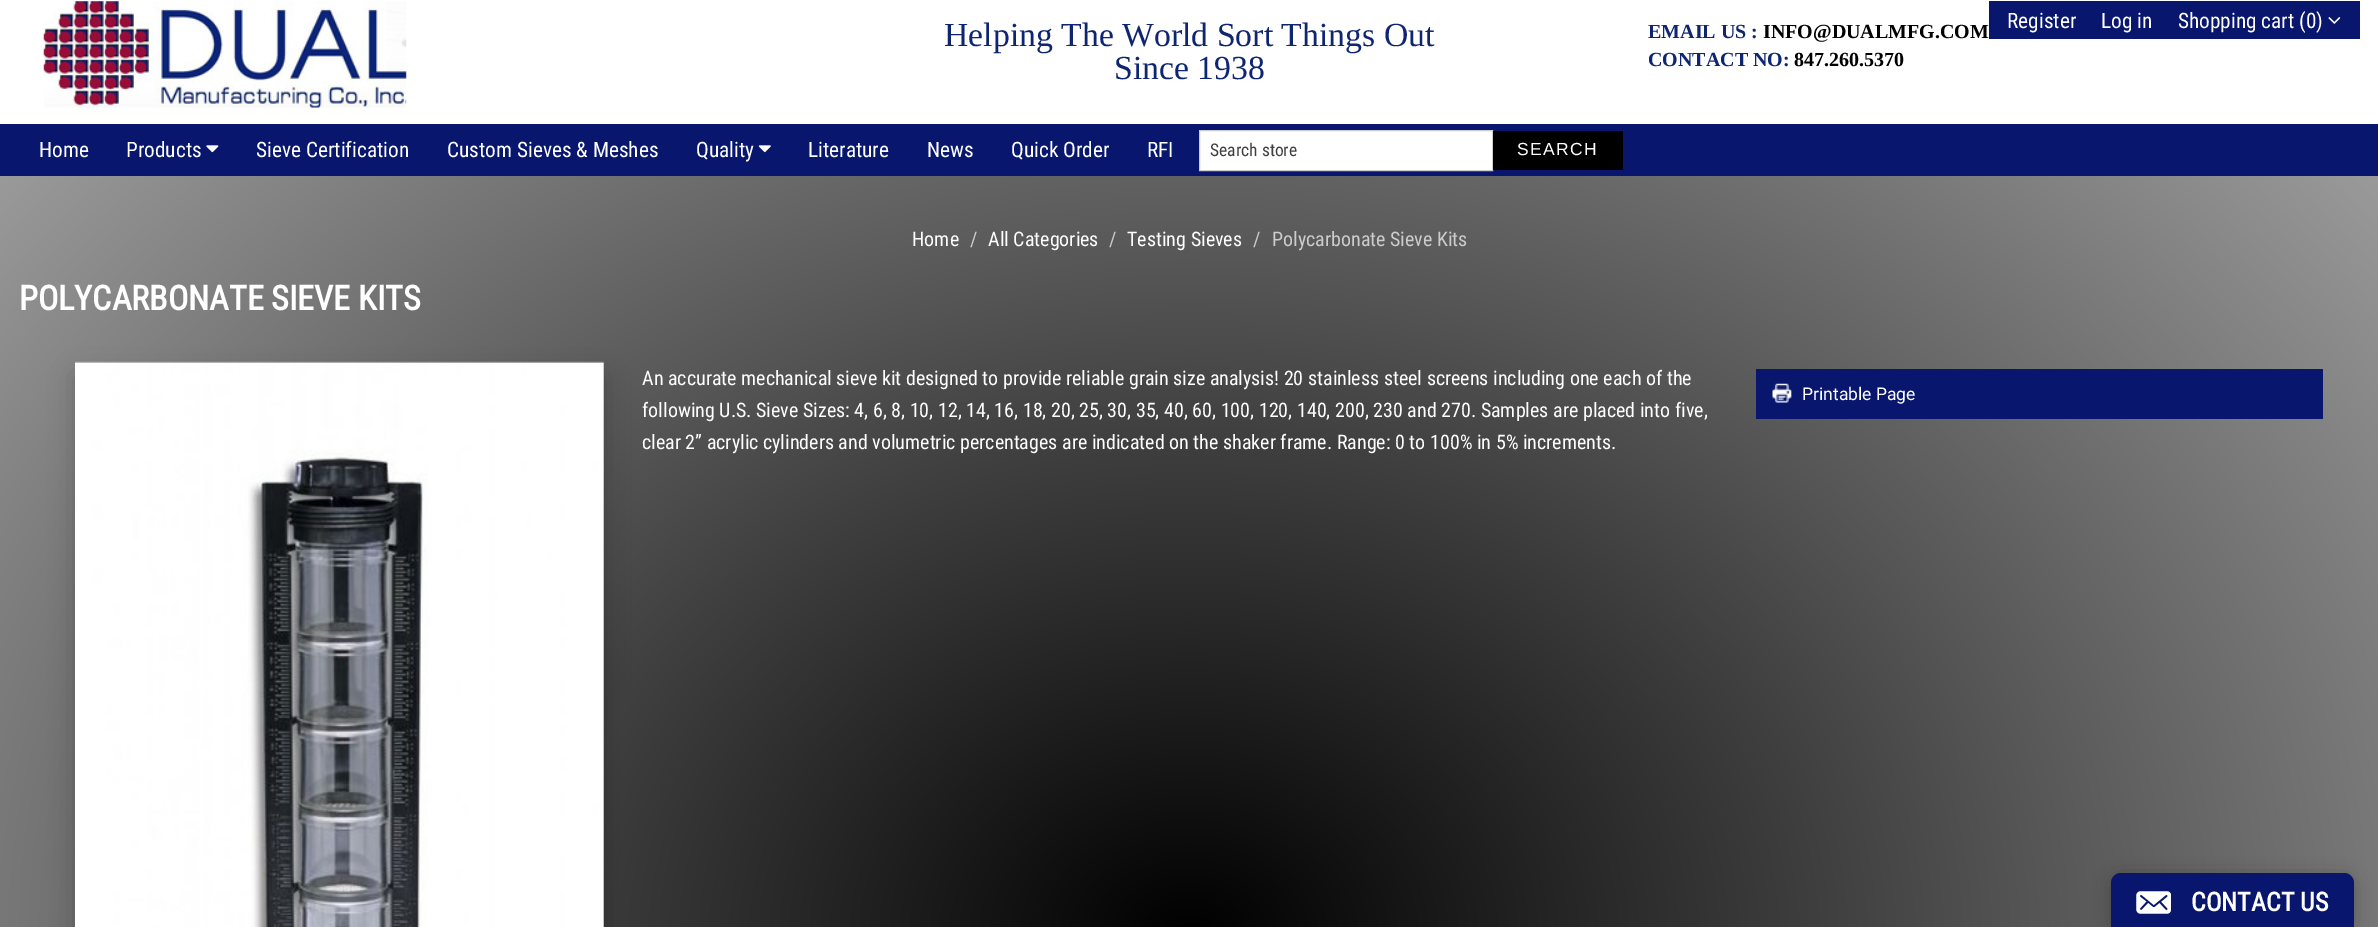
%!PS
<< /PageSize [2378 927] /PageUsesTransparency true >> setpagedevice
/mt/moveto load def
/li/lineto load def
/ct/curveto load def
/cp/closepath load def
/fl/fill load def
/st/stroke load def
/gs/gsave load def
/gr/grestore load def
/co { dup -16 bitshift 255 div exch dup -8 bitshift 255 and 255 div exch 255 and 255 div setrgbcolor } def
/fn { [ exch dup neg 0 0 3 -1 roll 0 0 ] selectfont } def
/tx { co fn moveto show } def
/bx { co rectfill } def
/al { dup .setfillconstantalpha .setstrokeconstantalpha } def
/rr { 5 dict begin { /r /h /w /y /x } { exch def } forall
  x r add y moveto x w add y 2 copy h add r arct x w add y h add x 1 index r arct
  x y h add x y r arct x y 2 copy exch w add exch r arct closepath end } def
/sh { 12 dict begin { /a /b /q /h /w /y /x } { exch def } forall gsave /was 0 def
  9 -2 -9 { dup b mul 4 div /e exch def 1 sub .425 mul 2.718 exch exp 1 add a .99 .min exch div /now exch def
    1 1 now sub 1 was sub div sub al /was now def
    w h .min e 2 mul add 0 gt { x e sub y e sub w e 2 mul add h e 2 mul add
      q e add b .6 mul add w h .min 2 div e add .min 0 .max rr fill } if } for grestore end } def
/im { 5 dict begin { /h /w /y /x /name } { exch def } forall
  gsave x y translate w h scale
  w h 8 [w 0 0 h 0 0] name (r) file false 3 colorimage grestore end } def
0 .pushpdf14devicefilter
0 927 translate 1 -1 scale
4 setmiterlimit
0 0 2378 927 16#FFFFFF bx
gs 0 176 mt 2378 176 li 2378 927 li 0 927 li cp clip newpath 1189 938 translate 1682 1326 scale
<< /ShadingType 3 /ColorSpace /DeviceRGB /Coords [0 0 0 0 0 1] /Extend [true true] /Function << /FunctionType 2 /Domain [0 1] /C0 [0 0 0] /C1 [.663 .663 .663] /N 1 >> >> shfill gr
(media/1.raw) 43 1 364 107 im
1989 1 371 38 16#08166D bx
(media/2.raw) 2328 17 13 7 im
0 124 2378 52 16#08166D bx
(media/3.raw) 206 145 13 8 im
(media/4.raw) 758 145 13 8 im
16#FFFFFF co
1199.5 130.5 mt 1492.5 130.5 li 1492.5 170.5 li 1199.5 170.5 li cp gs fl gr
16#CCCCCC co
st
1493 131 130 39 16#000000 bx
75 375 529 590 0 12.5 .2 sh
(media/5.raw) 75 361 529 566 im
1756 369 567 50 16#08166D bx
(media/6.raw) 1772 383 20 20 im
16#000000 co
2111 876 243 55 10 9.5 .25 sh
16#08166D co
2121 873 mt 2344 873 li 2349.5 873 2354 877.5 2354 883 ct 2354 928 li 2111 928 li 2111 883 li 2111 877.5 2115.5 873 2121 873 ct cp fl
(media/7.raw) 2136 891 35 23 im
(Helping The World Sort Things Out) 944 46 /LiberationSerif-Regular 33.75 16#0E2572 tx
(Since 1938) 1114 79 /LiberationSerif-Regular 33.75 16#0E2572 tx
(EMAIL US :) 1648 38 /LiberationSerif-Bold 20 16#0E2572 tx
(INFO@DUALMFG.COM) 1763 38 /LiberationSerif-Bold 20 16#000000 tx
(CONTACT NO:) 1648 66 /LiberationSerif-Bold 20 16#0E2572 tx
(847.260.5370) 1794 66 /LiberationSerif-Bold 20 16#000000 tx
(Register) 2007 28 /RobotoCondensed-Regular 21.25 16#FFFFFF tx
(Log in) 2101 28 /RobotoCondensed-Regular 21.25 16#FFFFFF tx
(Shopping cart \(0\)) 2178 28 /RobotoCondensed-Regular 21.25 16#FFFFFF tx
(Home) 39 157 /RobotoCondensed-Regular 21.25 16#FFFFFF tx
(Products) 126 157 /RobotoCondensed-Regular 21.25 16#FFFFFF tx
(Sieve Certification) 256 157 /RobotoCondensed-Regular 21.25 16#FFFFFF tx
(Custom Sieves & Meshes) 447 157 /RobotoCondensed-Regular 21.25 16#FFFFFF tx
(Quality) 696 157 /RobotoCondensed-Regular 21.25 16#FFFFFF tx
(Literature) 808 157 /RobotoCondensed-Regular 21.25 16#FFFFFF tx
(News) 927 157 /RobotoCondensed-Regular 21.25 16#FFFFFF tx
(Quick Order) 1011 157 /RobotoCondensed-Regular 21.25 16#FFFFFF tx
(RFI) 1147 157 /RobotoCondensed-Regular 21.25 16#FFFFFF tx
(Search store) 1210 156 /RobotoCondensed-Regular 17.5 16#404040 tx
/LiberationSans-Regular 17.5 fn
16#FFFFFF co
1517 155 mt 1.25 0 (SEARCH) ashow
(Home) 912 246 /RobotoCondensed-Regular 20 16#FFFFFF tx
(/) 970 246 /RobotoCondensed-Regular 20 16#CCCCCC tx
(All Categories) 988 246 /RobotoCondensed-Regular 20 16#FFFFFF tx
(/) 1109 246 /RobotoCondensed-Regular 20 16#CCCCCC tx
(Testing Sieves) 1127 246 /RobotoCondensed-Regular 20 16#FFFFFF tx
(/) 1253 246 /RobotoCondensed-Regular 20 16#CCCCCC tx
(Polycarbonate Sieve Kits) 1272 246 /RobotoCondensed-Regular 20 16#CCCCCC tx
(POLYCARBONATE SIEVE KITS) 19 310 /RobotoCondensed-Bold 34 16#FFFFFF tx
(An accurate mechanical sieve kit designed to provide reliable grain size analysis! 20 stainless steel screens including one each of the) 642 385 /RobotoCondensed-Regular 20 16#FFFFFF tx
(following U.S. Sieve Sizes: 4, 6, 8, 10, 12, 14, 16, 18, 20, 25, 30, 35, 40, 60, 100, 120, 140, 200, 230 and 270. Samples are placed into five,) 642 417 /RobotoCondensed-Regular 20 16#FFFFFF tx
(clear 2” acrylic cylinders and volumetric percentages are indicated on the shaker frame. Range: 0 to 100% in 5% increments.) 642 449 /RobotoCondensed-Regular 20 16#FFFFFF tx
(Printable Page) 1802 400 /Roboto-Regular 17.5 16#FFFFFF tx
(CONTACT US) 2191 911 /RobotoCondensed-Bold 26 16#FFFFFF tx
.poppdf14devicefilter showpage
